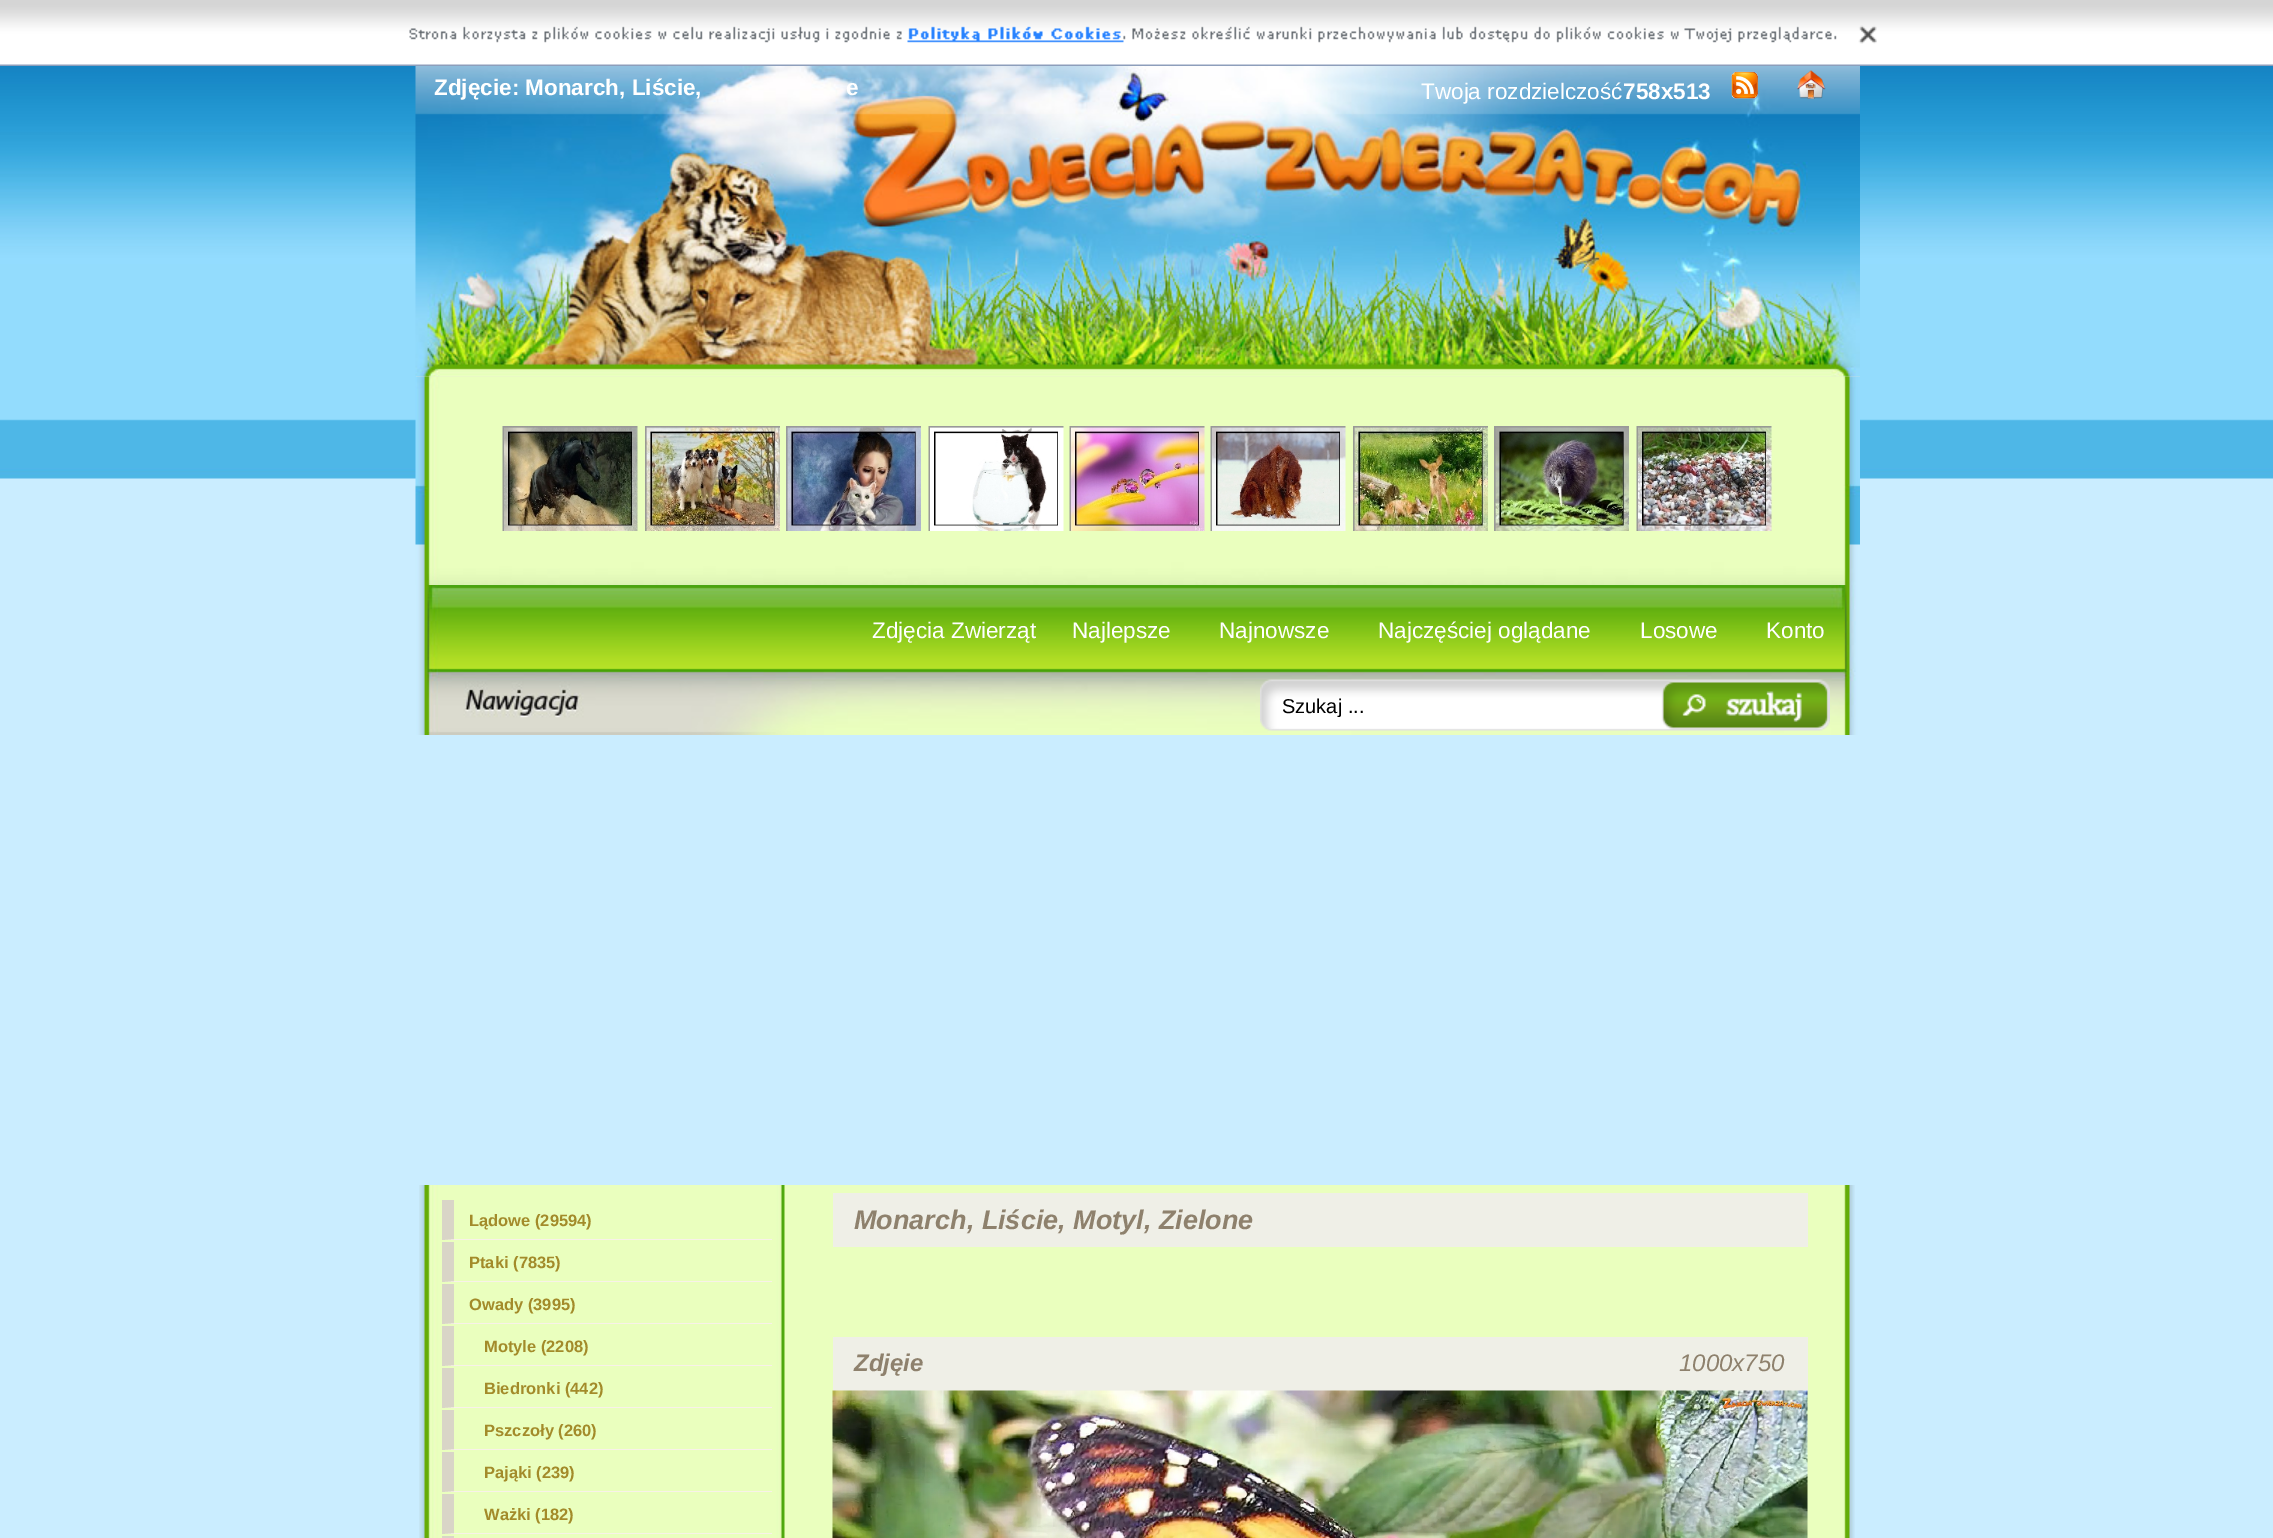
%!PS
<< /PageSize [2273 1538] >> setpagedevice
/mt/moveto load def
/li/lineto load def
/cp/closepath load def
/fl/fill load def
/gs/gsave load def
/gr/grestore load def
/co { dup -16 bitshift 255 div exch dup -8 bitshift 255 and 255 div exch 255 and 255 div setrgbcolor } def
/fn { [ exch dup neg 0 0 3 -1 roll 0 0 ] selectfont } def
/tx { co fn moveto show } def
/bx { co rectfill } def
/im { 5 dict begin { /h /w /y /x /name } { exch def } forall
  gsave x y translate w h scale
  w h 8 [w 0 0 h 0 0] name (r) file false 3 colorimage grestore end } def
0 1538 translate 1 -1 scale
4 setmiterlimit
0 0 2273 1538 16#CAEDFF bx
(media/1.raw) 0 66 2273 413 im
(media/2.raw) 0 0 2273 66 im
(media/3.raw) 409 25 1468 19 im
(media/4.raw) 415 66 1445 311 im
(media/5.raw) 1731 71 27 28 im
(media/6.raw) 1797 70 29 29 im
(media/7.raw) 415 376 1445 209 im
(media/8.raw) 502 426 136 105 im
(media/9.raw) 645 426 135 105 im
(media/10.raw) 786 426 135 105 im
(media/11.raw) 928 426 136 105 im
(media/12.raw) 1069 426 136 105 im
(media/13.raw) 1210 426 136 105 im
(media/14.raw) 1353 426 135 105 im
(media/15.raw) 1494 426 135 105 im
(media/16.raw) 1636 426 136 105 im
(media/17.raw) 416 585 1444 150 im
(media/18.raw) 1260 679 570 52 im
(media/19.raw) 419 1185 1436 353 im
16#F8F1E9 co
772 1240 mt 442 1240 li 454 1239 li 772 1239 li cp fl
16#D9D5C7 co
442 1240 mt 442 1200 li 454 1200 li 454 1239 li cp fl
16#F8F1E9 co
772 1282 mt 442 1282 li 454 1281 li 772 1281 li cp fl
16#D9D5C7 co
442 1282 mt 442 1242 li 454 1242 li 454 1281 li cp fl
16#F8F1E9 co
772 1324 mt 442 1324 li 454 1323 li 772 1323 li cp fl
16#D9D5C7 co
442 1324 mt 442 1284 li 454 1284 li 454 1323 li cp fl
16#F8F1E9 co
772 1366 mt 442 1366 li 454 1365 li 772 1365 li cp fl
16#D9D5C7 co
442 1366 mt 442 1326 li 454 1326 li 454 1365 li cp fl
16#F8F1E9 co
772 1408 mt 442 1408 li 454 1407 li 772 1407 li cp fl
16#D9D5C7 co
442 1408 mt 442 1368 li 454 1368 li 454 1407 li cp fl
16#F8F1E9 co
772 1450 mt 442 1450 li 454 1449 li 772 1449 li cp fl
16#D9D5C7 co
442 1450 mt 442 1410 li 454 1410 li 454 1449 li cp fl
16#F8F1E9 co
772 1492 mt 442 1492 li 454 1491 li 772 1491 li cp fl
16#D9D5C7 co
442 1492 mt 442 1452 li 454 1452 li 454 1491 li cp fl
16#F8F1E9 co
772 1534 mt 442 1534 li 454 1533 li 772 1533 li cp fl
16#D9D5C7 co
442 1534 mt 442 1494 li 454 1494 li 454 1533 li cp 442 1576 mt 442 1536 li 454 1536 li 454 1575 li cp fl
833 1193 975 54 16#EFEFE7 bx
833 1337 975 54 16#EFEFE7 bx
(media/20.raw) 832 1390 976 148 im
(Zdjęcie: Monarch, Liście,) 434 95 /LiberationSans-Bold 22.5 16#FFFFFF tx
(e) 846 95 /LiberationSans-Bold 22.5 16#FFFFFF tx
(Twoja rozdzielczość) 1421 99 /LiberationSans-Regular 22.5 16#FFFFFF tx
(758x513) 1623 99 /LiberationSans-Bold 22.5 16#FFFFFF tx
(Zdjęcia Zwierząt) 872 638 /LiberationSans-Regular 22.5 16#FFFFFF tx
(Najlepsze) 1072 638 /LiberationSans-Regular 22.5 16#FFFFFF tx
(Najnowsze) 1219 638 /LiberationSans-Regular 22.5 16#FFFFFF tx
(Najczęściej oglądane) 1378 638 /LiberationSans-Regular 22.5 16#FFFFFF tx
(Losowe) 1640 638 /LiberationSans-Regular 22.5 16#FFFFFF tx
(Konto) 1766 638 /LiberationSans-Regular 22.5 16#FFFFFF tx
gs
1283 695 375 22 rectclip
(Szukaj ...) 1282 713 /LiberationSans-Regular 20 16#000000 tx
gr
(Lądowe \(29594\)) 469 1226 /LiberationSans-Bold 16.5 16#A38B2A tx
(Ptaki \(7835\)) 469 1268 /LiberationSans-Bold 16.5 16#A38B2A tx
(Owady \(3995\)) 469 1310 /LiberationSans-Bold 16.5 16#A38B2A tx
(Motyle \(2208\)) 484 1352 /LiberationSans-Bold 16.5 16#A38B2A tx
(Biedronki \(442\)) 484 1394 /LiberationSans-Bold 16.5 16#A38B2A tx
(Pszczoły \(260\)) 484 1436 /LiberationSans-Bold 16.5 16#A38B2A tx
(Pająki \(239\)) 484 1478 /LiberationSans-Bold 16.5 16#A38B2A tx
(Ważki \(182\)) 484 1520 /LiberationSans-Bold 16.5 16#A38B2A tx
(Monarch, Liście, Motyl, Zielone) 854 1229 /LiberationSans-BoldItalic 27 16#8E816D tx
(Zdjęie) 854 1371 /LiberationSans-BoldItalic 24 16#8E816D tx
(1000x750) 1679 1371 /LiberationSans-Italic 24 16#8E816D tx
showpage
